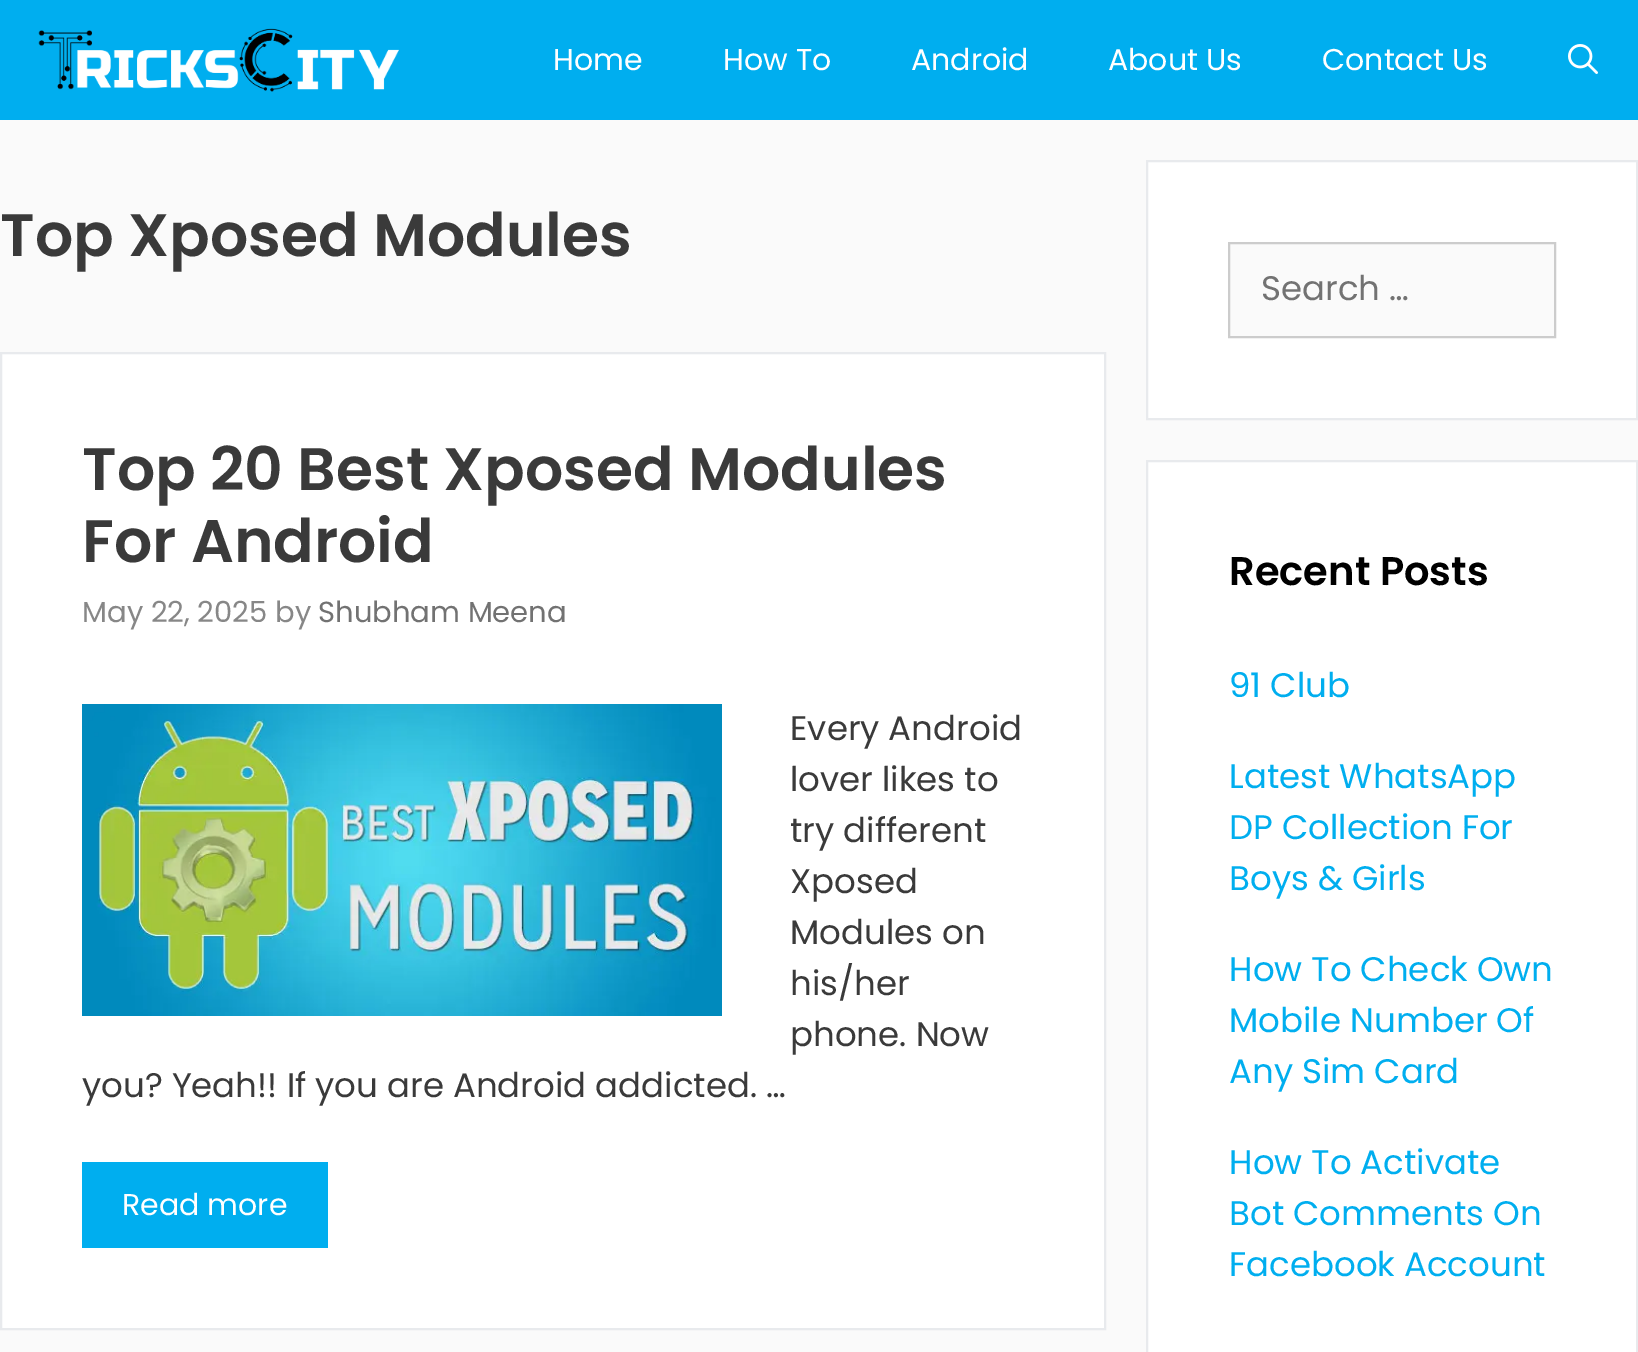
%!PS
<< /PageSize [1638 1352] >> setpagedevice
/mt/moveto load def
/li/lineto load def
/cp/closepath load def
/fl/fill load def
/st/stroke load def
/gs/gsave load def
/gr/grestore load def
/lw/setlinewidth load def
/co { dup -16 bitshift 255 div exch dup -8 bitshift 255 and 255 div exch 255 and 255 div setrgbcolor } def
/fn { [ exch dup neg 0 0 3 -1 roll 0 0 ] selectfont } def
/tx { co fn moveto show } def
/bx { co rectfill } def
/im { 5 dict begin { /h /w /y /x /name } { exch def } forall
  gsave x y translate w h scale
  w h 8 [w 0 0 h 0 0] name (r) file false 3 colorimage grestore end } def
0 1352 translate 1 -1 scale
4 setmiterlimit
0 0 1638 1352 16#FAFAFA bx
0 0 1638 120 16#00AEEF bx
(media/1.raw) 38 28 361 64 im
(media/2.raw) 1568 44 30 30 im
16#FFFFFF co
1 353 mt 1105 353 li 1105 1329 li 1 1329 li cp gs fl gr
16#E8EAED co
2 lw
st
(media/3.raw) 82 704 640 312 im
82 1162 246 86 16#00AEEF bx
16#FFFFFF co
1147 161 mt 1637 161 li 1637 419 li 1147 419 li cp gs fl gr
16#E8EAED co
st
16#FAFAFA co
1229 243 mt 1555 243 li 1555 337 li 1229 337 li cp gs fl gr
16#CCCCCC co
st
16#FFFFFF co
1147 461 mt 1637 461 li 1637 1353 li 1147 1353 li cp gs fl gr
16#E8EAED co
st
(Home) 553 70 /Poppins-Regular 30 16#FFFFFF tx
(How To) 723 70 /Poppins-Regular 30 16#FFFFFF tx
(Android) 911 70 /Poppins-Regular 30 16#FFFFFF tx
(About Us) 1108 70 /Poppins-Regular 30 16#FFFFFF tx
(Contact Us) 1322 70 /Poppins-Regular 30 16#FFFFFF tx
(Top Xposed Modules) 0 256 /Poppins-SemiBold 60 16#3A3A3A tx
(Top 20 Best Xposed Modules) 82 490 /Poppins-SemiBold 60 16#3A3A3A tx
(For Android) 82 562 /Poppins-SemiBold 60 16#3A3A3A tx
(May 22, 2025 by) 82 622 /Poppins-Regular 29 16#878787 tx
(Shubham Meena) 318 622 /Poppins-Regular 29 16#727272 tx
(Every Android) 790 740 /Poppins-Regular 34 16#3A3A3A tx
(lover likes to) 790 791 /Poppins-Regular 34 16#3A3A3A tx
(try different) 790 842 /Poppins-Regular 34 16#3A3A3A tx
(Xposed) 790 893 /Poppins-Regular 34 16#3A3A3A tx
(Modules on) 790 944 /Poppins-Regular 34 16#3A3A3A tx
(his/her) 790 995 /Poppins-Regular 34 16#3A3A3A tx
(phone. Now) 790 1046 /Poppins-Regular 34 16#3A3A3A tx
(you? Yeah!! If you are Android addicted. …) 82 1097 /Poppins-Regular 34 16#3A3A3A tx
(Read more) 122 1215 /Poppins-Regular 30 16#FFFFFF tx
(Search …) 1261 300 /Poppins-Regular 34 16#727272 tx
(Recent Posts) 1229 585 /Poppins-SemiBold 40 16#000000 tx
(91 Club) 1229 697 /Poppins-Regular 34 16#00AEEF tx
(Latest WhatsApp) 1229 788 /Poppins-Regular 34 16#00AEEF tx
(DP Collection For) 1229 839 /Poppins-Regular 34 16#00AEEF tx
(Boys & Girls) 1229 890 /Poppins-Regular 34 16#00AEEF tx
(How To Check Own) 1229 981 /Poppins-Regular 34 16#00AEEF tx
(Mobile Number Of) 1229 1032 /Poppins-Regular 34 16#00AEEF tx
(Any Sim Card) 1229 1083 /Poppins-Regular 34 16#00AEEF tx
(How To Activate) 1229 1174 /Poppins-Regular 34 16#00AEEF tx
(Bot Comments On) 1229 1225 /Poppins-Regular 34 16#00AEEF tx
(Facebook Account) 1229 1276 /Poppins-Regular 34 16#00AEEF tx
showpage
